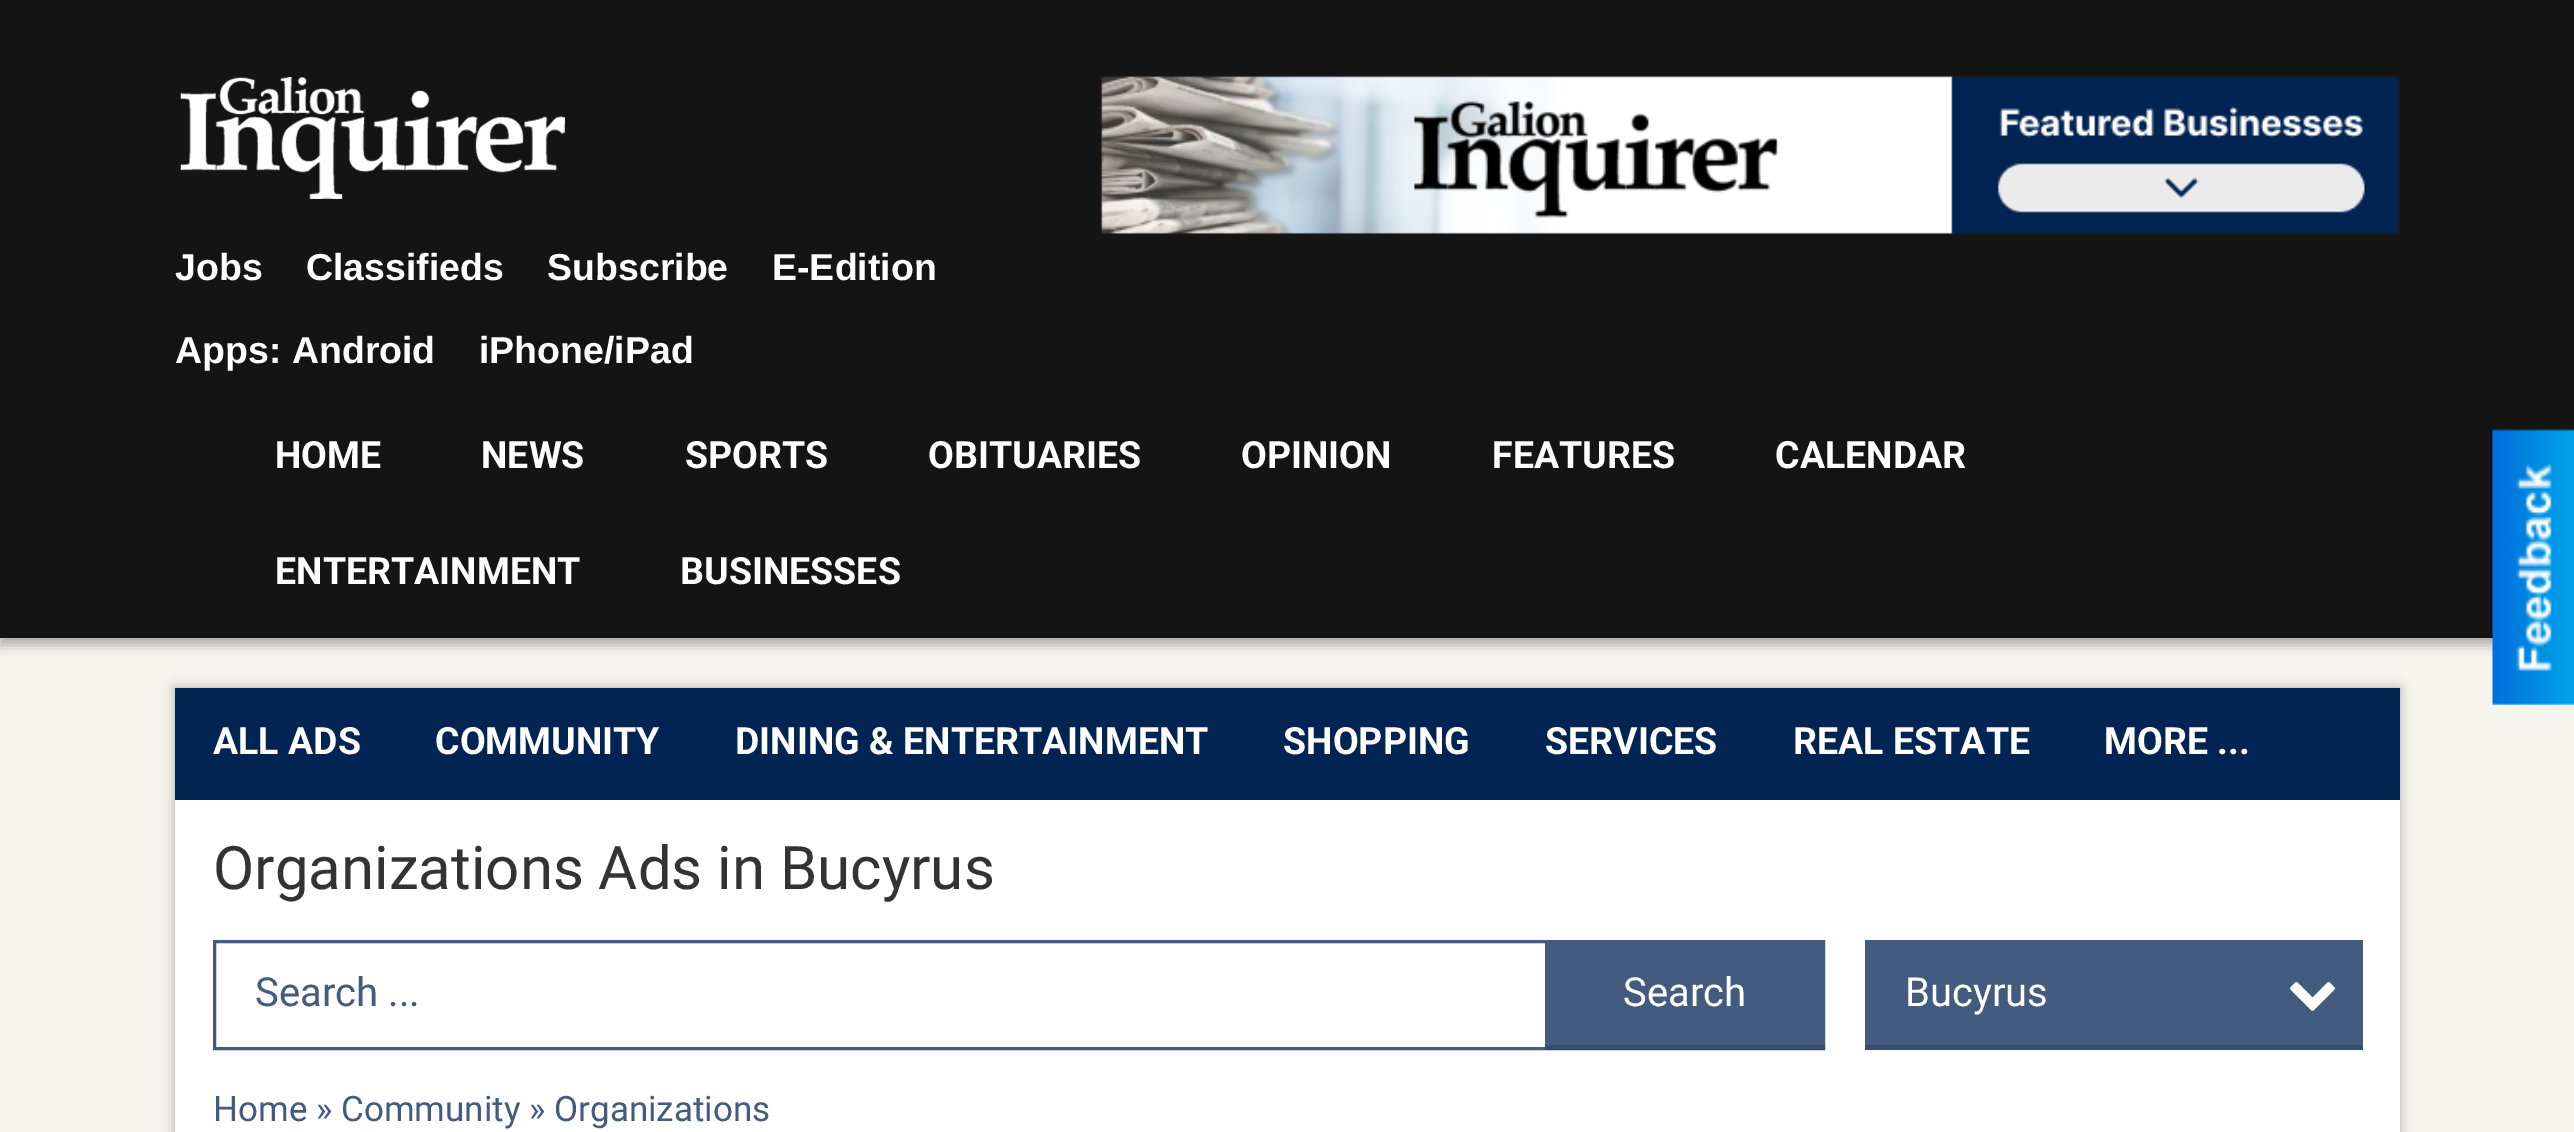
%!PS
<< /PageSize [2574 1132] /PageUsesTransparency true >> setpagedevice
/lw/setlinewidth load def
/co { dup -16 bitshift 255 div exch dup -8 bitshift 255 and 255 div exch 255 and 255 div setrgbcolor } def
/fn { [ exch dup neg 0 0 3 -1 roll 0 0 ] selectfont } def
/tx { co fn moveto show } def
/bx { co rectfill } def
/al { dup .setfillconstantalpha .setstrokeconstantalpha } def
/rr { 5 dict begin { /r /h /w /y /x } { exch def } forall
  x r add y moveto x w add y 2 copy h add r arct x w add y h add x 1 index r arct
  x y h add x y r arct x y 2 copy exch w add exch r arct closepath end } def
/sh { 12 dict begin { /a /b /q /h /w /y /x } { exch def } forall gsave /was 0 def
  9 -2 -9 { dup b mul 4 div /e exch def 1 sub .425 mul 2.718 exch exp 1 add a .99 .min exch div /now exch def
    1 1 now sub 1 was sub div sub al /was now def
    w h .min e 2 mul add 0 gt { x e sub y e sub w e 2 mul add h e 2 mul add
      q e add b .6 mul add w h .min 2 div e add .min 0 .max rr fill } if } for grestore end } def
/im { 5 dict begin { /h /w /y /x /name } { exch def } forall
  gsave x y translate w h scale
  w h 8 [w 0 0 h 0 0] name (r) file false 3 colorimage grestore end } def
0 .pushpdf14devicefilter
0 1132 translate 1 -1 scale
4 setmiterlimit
0 0 2574 1132 16#F5F4EF bx
16#A9A9A9 co
0 8 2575 637 0 6 1 sh
0 0 2574 638 16#141414 bx
(media/1.raw) 1100 75 1300 160 im
(media/2.raw) 180 77 385 122 im
(media/3.raw) 2492 429 82 276 im
16#A9A9A9 co
175 688 2225 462 0 6 1 sh
175 800 2225 332 16#FFFFFF bx
175 688 2225 112 16#022452 bx
16#425B7E co
3 lw
214.5 941.5 1609 107 rectstroke
1545 943 277 102 16#425B7E bx
1545 1045 280 5 16#384D6B bx
1865 940 498 105 16#425B7E bx
1865 1045 498 5 16#384D6B bx
(media/4.raw) 2290 982 45 29 im
(Jobs) 175 280 /LiberationSans-Bold 37.5 16#FFFFFF tx
(Classifieds) 306 280 /LiberationSans-Bold 37.5 16#FFFFFF tx
(Subscribe) 547 280 /LiberationSans-Bold 37.5 16#FFFFFF tx
(E-Edition) 772 280 /LiberationSans-Bold 37.5 16#FFFFFF tx
(Apps: Android) 175 363 /LiberationSans-Bold 37.5 16#FFFFFF tx
(iPhone/iPad) 479 363 /LiberationSans-Bold 37.5 16#FFFFFF tx
(HOME) 275 468 /Roboto-Bold 37.5 16#FFFFFF tx
(NEWS) 481 468 /Roboto-Bold 37.5 16#FFFFFF tx
(SPORTS) 685 468 /Roboto-Bold 37.5 16#FFFFFF tx
(OBITUARIES) 928 468 /Roboto-Bold 37.5 16#FFFFFF tx
(OPINION) 1241 468 /Roboto-Bold 37.5 16#FFFFFF tx
(FEATURES) 1492 468 /Roboto-Bold 37.5 16#FFFFFF tx
(CALENDAR) 1775 468 /Roboto-Bold 37.5 16#FFFFFF tx
(ENTERTAINMENT) 275 584 /Roboto-Bold 37.5 16#FFFFFF tx
(BUSINESSES) 680 584 /Roboto-Bold 37.5 16#FFFFFF tx
(ALL ADS) 213 754 /Roboto-Bold 37.5 16#FFFFFF tx
(COMMUNITY) 435 754 /Roboto-Bold 37.5 16#FFFFFF tx
(DINING & ENTERTAINMENT) 735 754 /Roboto-Bold 37.5 16#FFFFFF tx
(SHOPPING) 1283 754 /Roboto-Bold 37.5 16#FFFFFF tx
(SERVICES) 1545 754 /Roboto-Bold 37.5 16#FFFFFF tx
(REAL ESTATE) 1793 754 /Roboto-Bold 37.5 16#FFFFFF tx
(MORE ...) 2104 754 /Roboto-Bold 37.5 16#FFFFFF tx
(Organizations Ads in Bucyrus) 213 889 /Roboto-Regular 60 16#333333 tx
(Search ...) 255 1006 /Roboto-Regular 40 16#425B7E tx
(Search) 1623 1006 /Roboto-Regular 40 16#FFFFFF tx
(Bucyrus) 1905 1006 /Roboto-Regular 40 16#FFFFFF tx
(Home » Community » Organizations) 213 1121 /Roboto-Regular 35 16#425B7E tx
.poppdf14devicefilter showpage
